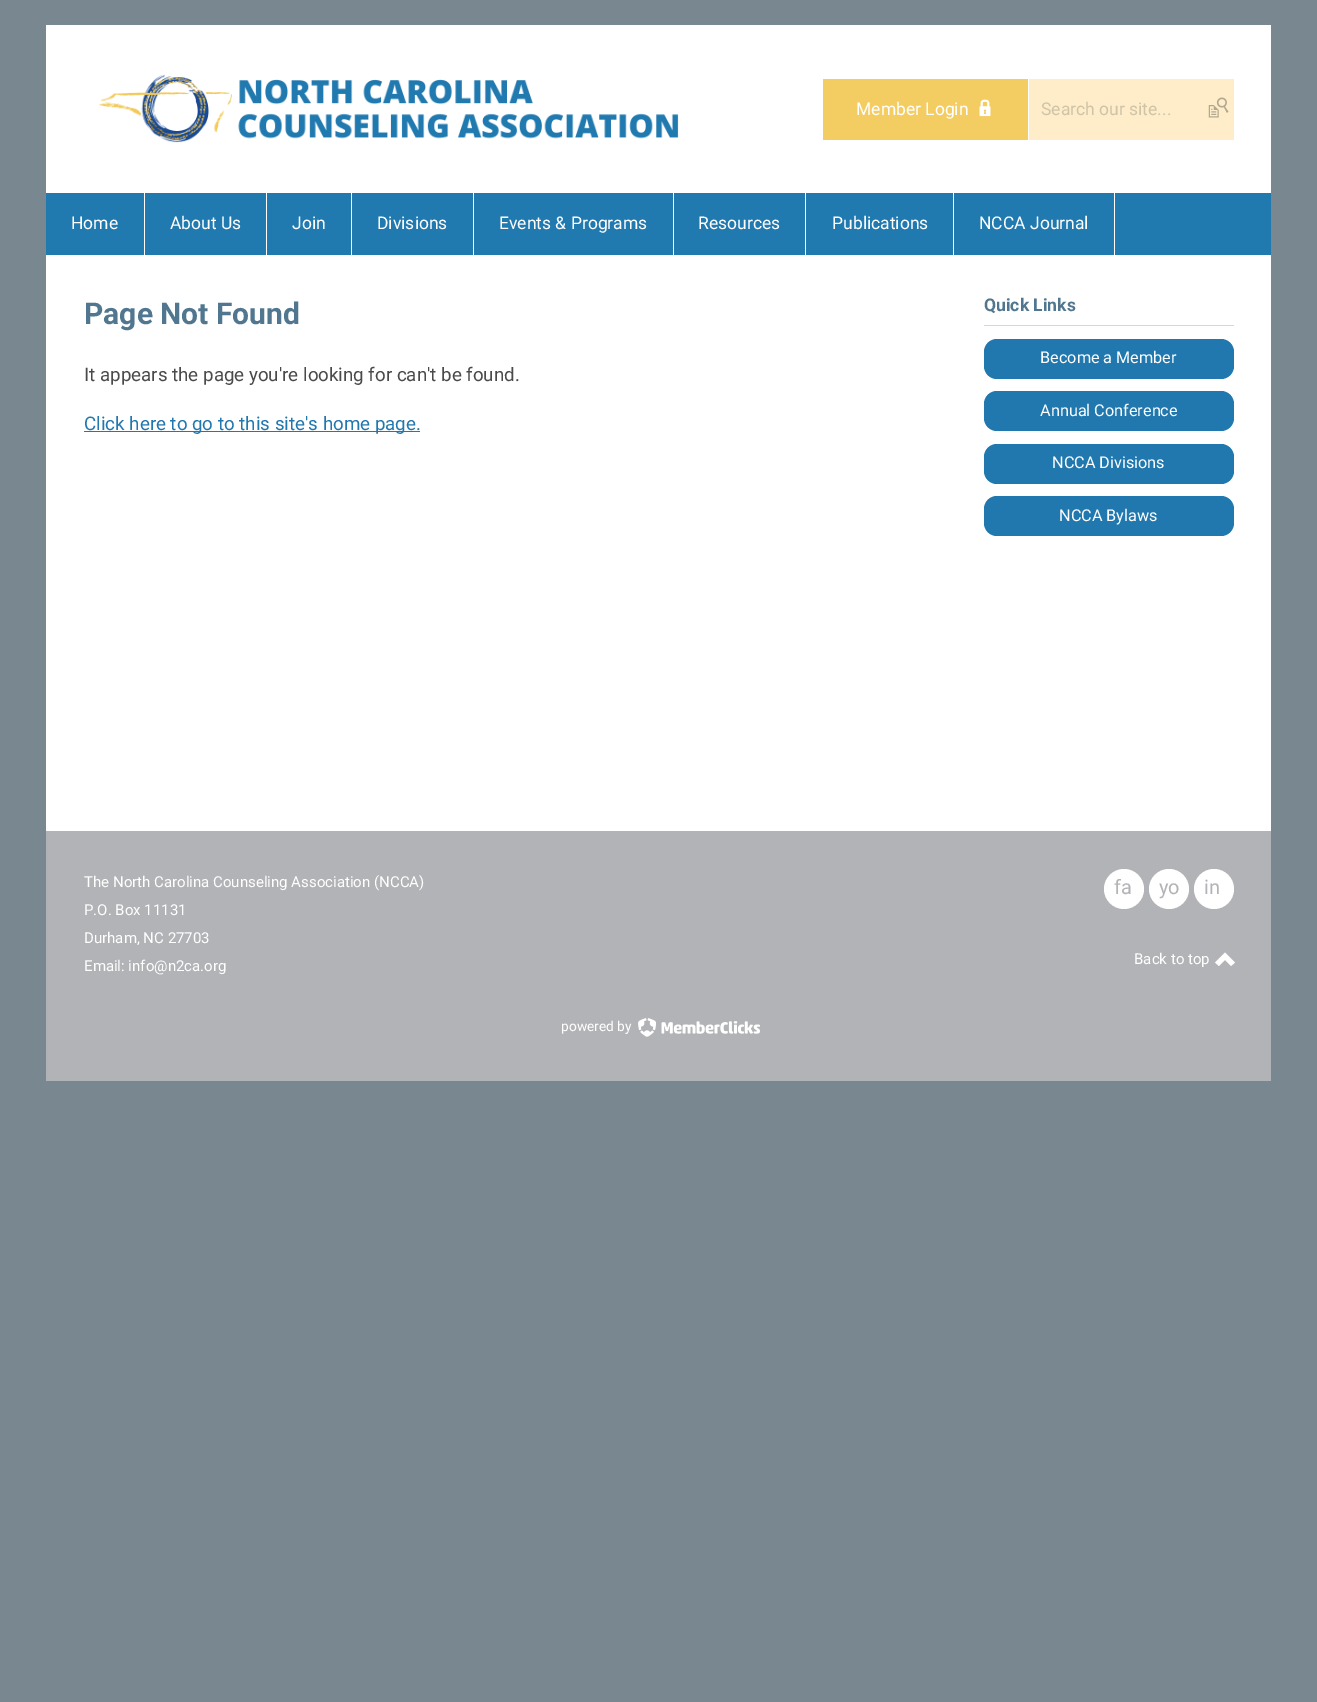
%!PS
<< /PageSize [1317 1702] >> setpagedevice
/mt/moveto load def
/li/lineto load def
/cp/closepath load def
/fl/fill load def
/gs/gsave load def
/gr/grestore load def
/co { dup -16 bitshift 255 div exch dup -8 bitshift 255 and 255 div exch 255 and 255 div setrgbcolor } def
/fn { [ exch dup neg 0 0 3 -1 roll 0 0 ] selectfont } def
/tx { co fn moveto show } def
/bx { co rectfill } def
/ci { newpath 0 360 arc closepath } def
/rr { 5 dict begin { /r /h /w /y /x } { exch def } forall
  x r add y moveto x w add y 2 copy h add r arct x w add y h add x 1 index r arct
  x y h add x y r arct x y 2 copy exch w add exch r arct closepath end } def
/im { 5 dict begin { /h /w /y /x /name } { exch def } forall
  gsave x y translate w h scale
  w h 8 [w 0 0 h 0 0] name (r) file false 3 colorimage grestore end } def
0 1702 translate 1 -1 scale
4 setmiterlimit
0 0 1317 1702 16#788790 bx
46 25 1225 168 16#FFFFFF bx
(media/1.raw) 98 74 581 69 im
823 79 205 61 16#F3CD62 bx
(media/2.raw) 979 99 12 18 im
1029 79 205 61 16#FEEDC8 bx
(media/3.raw) 1208 97 21 21 im
46 193 1225 62 16#2079AF bx
46 255 1225 576 16#FFFFFF bx
144 193 1 62 16#FFFFFF bx
266 193 1 62 16#FFFFFF bx
351 193 1 62 16#FFFFFF bx
473 193 1 62 16#FFFFFF bx
673 193 1 62 16#FFFFFF bx
805 193 1 62 16#FFFFFF bx
953 193 1 62 16#FFFFFF bx
1114 193 1 62 16#FFFFFF bx
84 431 336 1 16#2178AE bx
984 325 250 1 16#CEDAE1 bx
16#2178AE co
984 339 250 40 13 rr fl
984 391 250 40 13 rr fl
984 444 250 40 13 rr fl
984 496 250 40 13 rr fl
46 831 1225 250 16#B2B3B6 bx
16#FFFFFF co
1124 889 20 ci fl
1169 889 20 ci fl
1214 889 20 ci fl
1215 962.5 mt 1219 966 li 1225 960 li 1231 966 li 1235 962.5 li 1225 952.5 li cp fl
(media/4.raw) 638 1018 18 19 im
(media/5.raw) 661 1021 99 13 im
(Member Login) 856 115 /Roboto-Regular 17.5 16#FFFFFF tx
(Search our site...) 1041 115 /Roboto-Regular 17.5 16#D0C4A8 tx
(Home) 71 229 /Roboto-Regular 17.5 16#FFFFFF tx
(About Us) 170 229 /Roboto-Regular 17.5 16#FFFFFF tx
(Join) 292 229 /Roboto-Regular 17.5 16#FFFFFF tx
(Divisions) 377 229 /Roboto-Regular 17.5 16#FFFFFF tx
(Events & Programs) 499 229 /Roboto-Regular 17.5 16#FFFFFF tx
(Resources) 698 229 /Roboto-Regular 17.5 16#FFFFFF tx
(Publications) 832 229 /Roboto-Regular 17.5 16#FFFFFF tx
(NCCA Journal) 979 229 /Roboto-Regular 17.5 16#FFFFFF tx
(Page Not Found) 84 324 /Roboto-Bold 30 16#50778F tx
(It appears the page you're looking for can't be found.) 84 381 /Roboto-Regular 18.75 16#4A4A4A tx
(Click here to go to this site's home page.) 84 430 /Roboto-Regular 18.75 16#2178AE tx
(Quick Links) 984 311 /Roboto-Bold 17.5 16#50778F tx
(Become a Member) 1040 363 /Roboto-Regular 16.25 16#FFFFFF tx
(Annual Conference) 1040 416 /Roboto-Regular 16.25 16#FFFFFF tx
(NCCA Divisions) 1052 468 /Roboto-Regular 16.25 16#FFFFFF tx
(NCCA Bylaws) 1059 521 /Roboto-Regular 16.25 16#FFFFFF tx
(The North Carolina Counseling Association \(NCCA\)) 84 887 /Roboto-Regular 15 16#FFFFFF tx
(P.O. Box 11131) 84 915 /Roboto-Regular 15 16#FFFFFF tx
(Durham, NC 27703) 84 943 /Roboto-Regular 15 16#FFFFFF tx
(Email: info@n2ca.org) 84 971 /Roboto-Regular 15 16#FFFFFF tx
gs
1114 879 20 20 rectclip
(fa) 1114 894 /Roboto-Regular 20 16#B2B3B6 tx
gr
(yo) 1159 894 /Roboto-Regular 20 16#B2B3B6 tx
(in) 1204 894 /Roboto-Regular 20 16#B2B3B6 tx
(Back to top) 1134 964 /Roboto-Regular 15 16#FFFFFF tx
(powered by) 561 1031 /Roboto-Regular 13.75 16#FFFFFF tx
showpage
